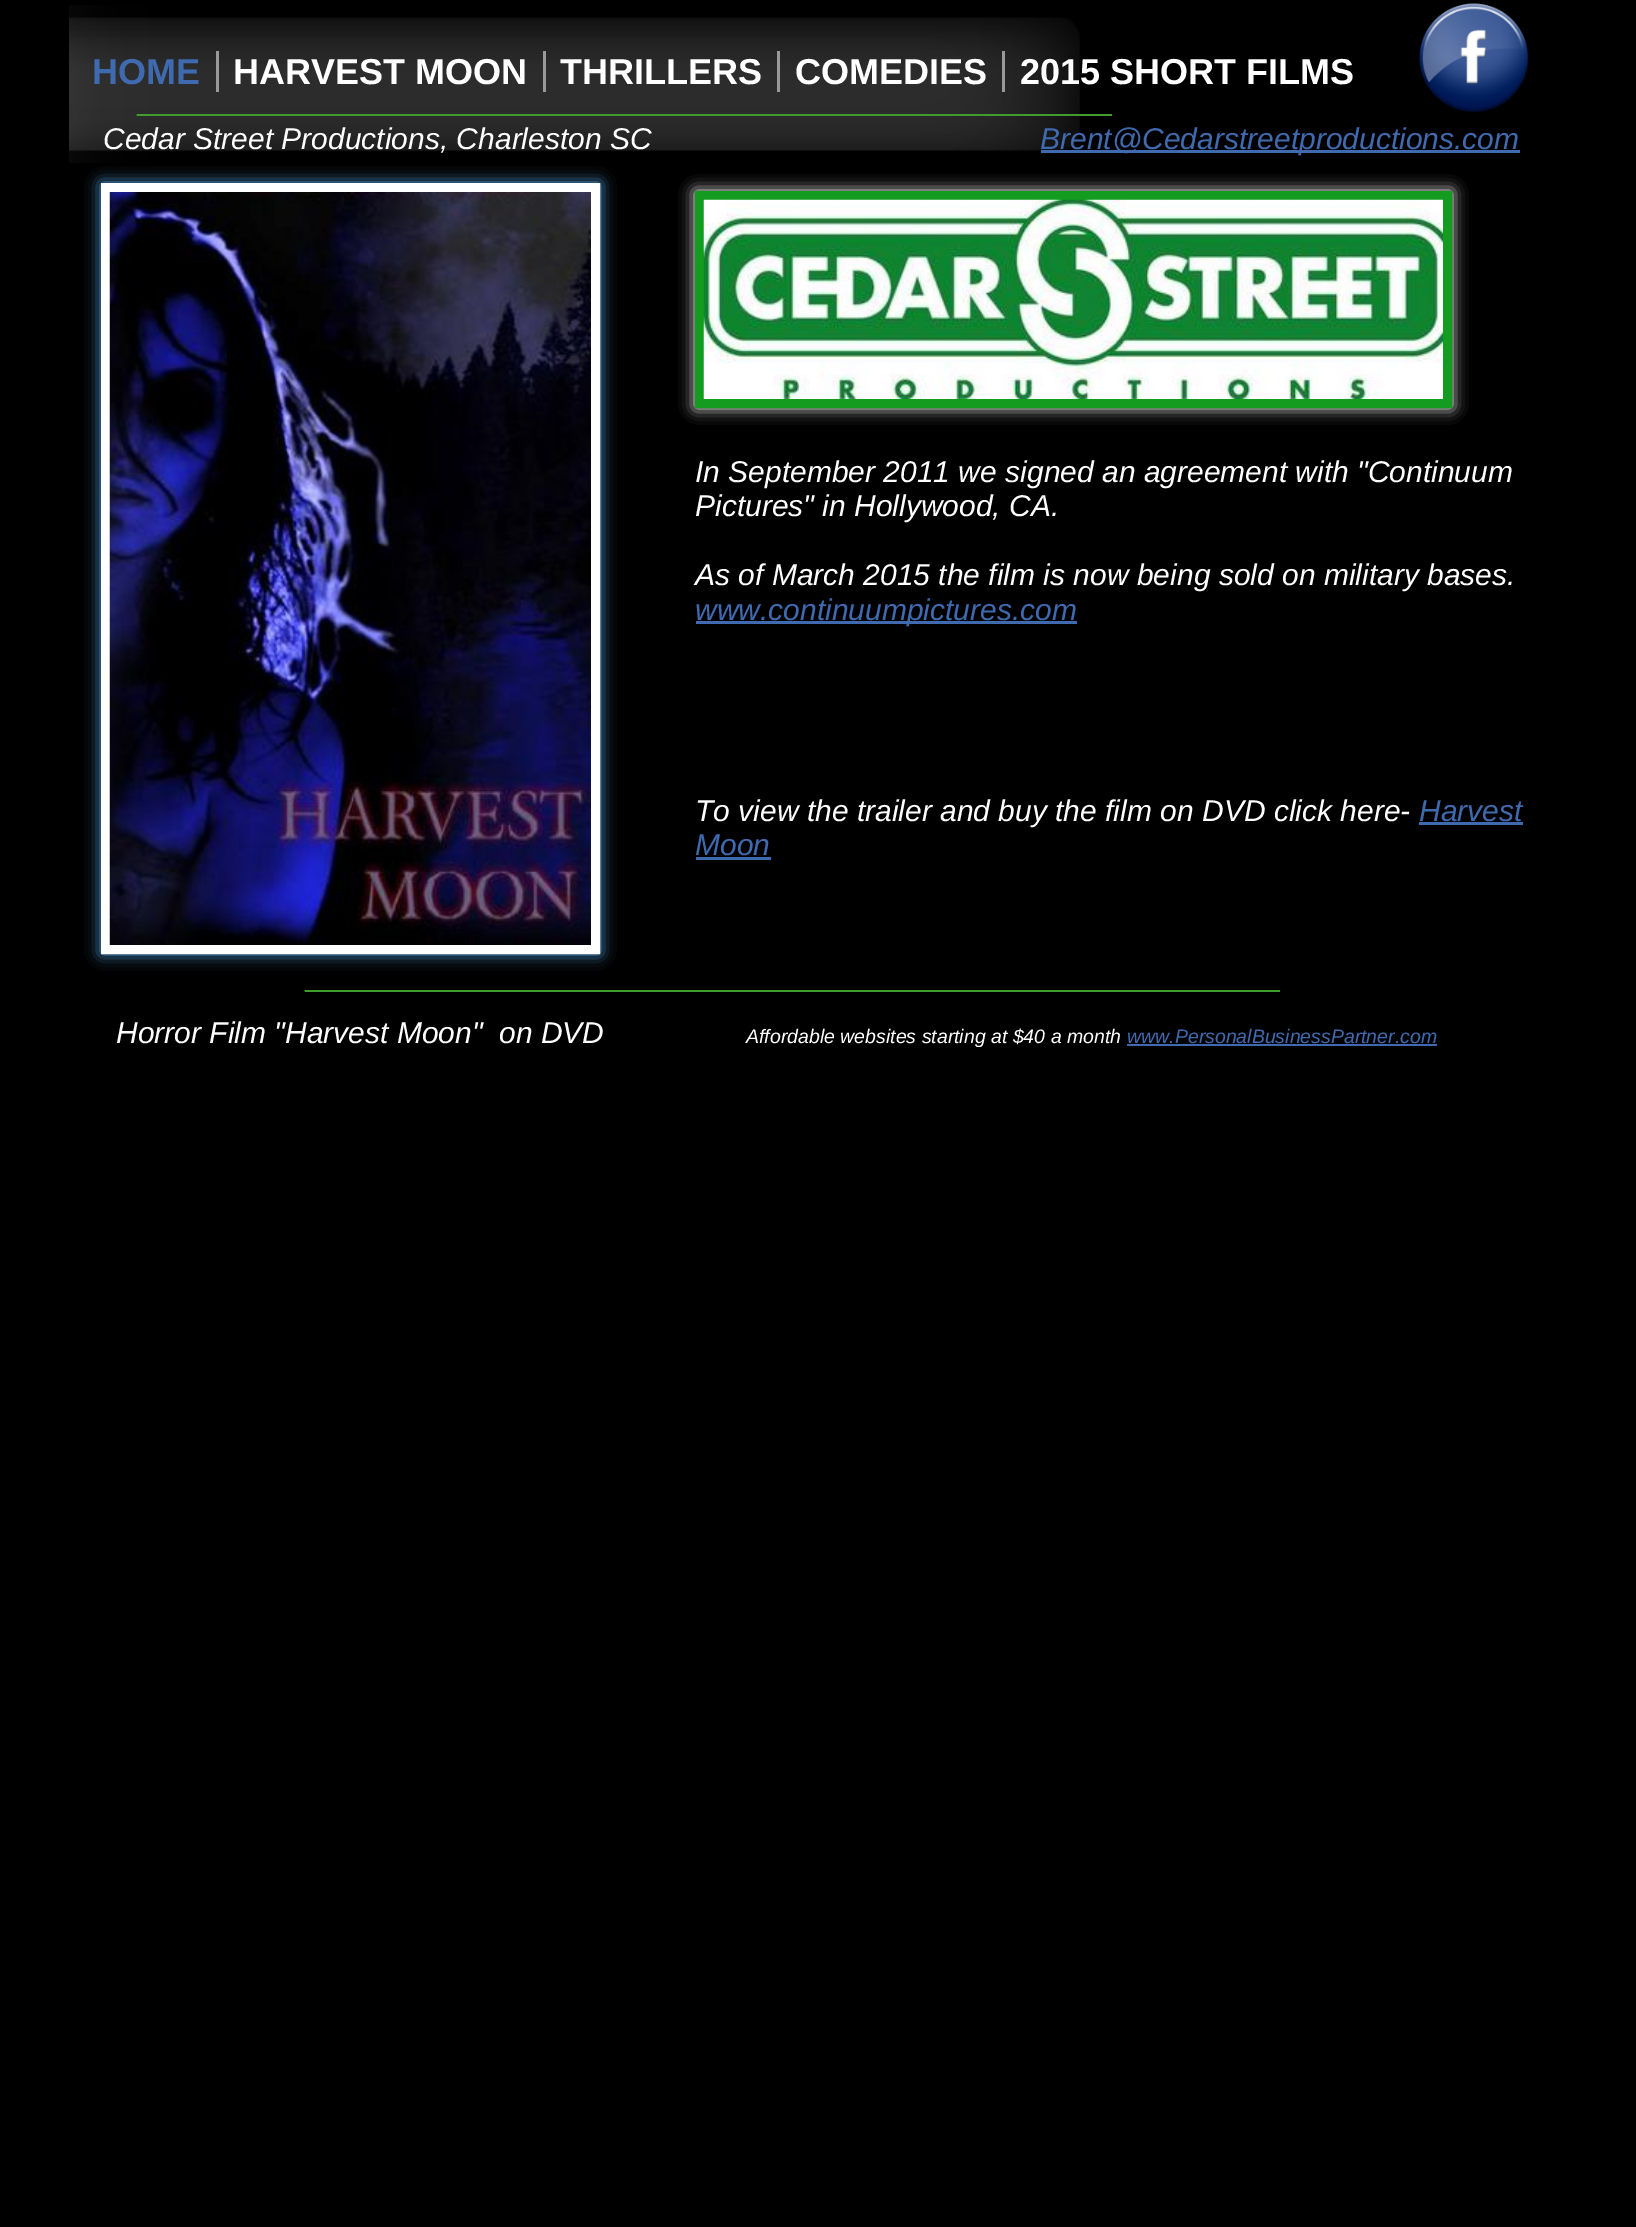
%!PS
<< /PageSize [1636 2227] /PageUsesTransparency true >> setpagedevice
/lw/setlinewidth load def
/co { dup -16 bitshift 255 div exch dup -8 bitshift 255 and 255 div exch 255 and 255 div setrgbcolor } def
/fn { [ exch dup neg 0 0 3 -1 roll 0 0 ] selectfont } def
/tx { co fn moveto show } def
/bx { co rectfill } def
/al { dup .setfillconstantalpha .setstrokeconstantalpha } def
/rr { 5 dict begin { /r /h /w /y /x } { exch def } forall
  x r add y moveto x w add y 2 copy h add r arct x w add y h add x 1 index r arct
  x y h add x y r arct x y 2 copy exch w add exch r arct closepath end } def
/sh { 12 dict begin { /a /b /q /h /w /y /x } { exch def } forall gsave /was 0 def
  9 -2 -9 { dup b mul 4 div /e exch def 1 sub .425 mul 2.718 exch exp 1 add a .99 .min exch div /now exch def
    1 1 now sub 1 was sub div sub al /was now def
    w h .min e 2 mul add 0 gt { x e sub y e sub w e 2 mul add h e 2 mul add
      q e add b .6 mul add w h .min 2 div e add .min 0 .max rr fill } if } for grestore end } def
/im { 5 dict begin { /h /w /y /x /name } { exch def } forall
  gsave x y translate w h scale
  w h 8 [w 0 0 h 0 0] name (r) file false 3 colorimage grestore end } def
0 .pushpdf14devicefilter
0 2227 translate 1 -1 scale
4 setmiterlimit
0 0 1636 2227 16#000000 bx
(media/1.raw) 69 5 1011 158 im
(media/2.raw) 1419 3 110 110 im
216 51 3 41 16#999999 bx
543 51 3 41 16#999999 bx
777 51 3 41 16#999999 bx
1002 51 3 41 16#999999 bx
137 114 975 2 16#3F9C2D bx
(media/3.raw) 136 114 1 2 im
1041 150 479 3 16#406AB0 bx
16#52A8EC co
101 183 499 771 0 7.5 1 sh
16#FFFFFF co
9 lw
105.5 187.5 490 762 rectstroke
(media/4.raw) 109 192 482 753 im
695 191 757 217 0 7.5 1 sh
16#139C20 co
699.5 195.5 748 208 rectstroke
(media/5.raw) 703 199 740 200 im
696 621 381 3 16#406AB0 bx
1419 822 104 3 16#406AB0 bx
696 857 75 3 16#406AB0 bx
305 990 975 2 16#3F9C2D bx
(media/6.raw) 304 990 1 2 im
1127 1044 310 2 16#406AB0 bx
(HOME) 92 84 /LiberationSans-Bold 36 16#406AB0 tx
(HARVEST MOON) 233 84 /LiberationSans-Bold 36 16#FFFFFF tx
(THRILLERS) 560 84 /LiberationSans-Bold 36 16#FFFFFF tx
(COMEDIES) 795 84 /LiberationSans-Bold 36 16#FFFFFF tx
(2015 SHORT FILMS) 1020 84 /LiberationSans-Bold 36 16#FFFFFF tx
(Cedar Street Productions, Charleston SC) 103 149 /LiberationSans-Italic 30 16#FFFFFF tx
(Brent@Cedarstreetproductions.com) 1040 149 /LiberationSans-Italic 30 16#406AB0 tx
(In September 2011 we signed an agreement with "Continuum) 695 482 /LiberationSans-Italic 30 16#FFFFFF tx
(Pictures" in Hollywood, CA.) 695 516 /LiberationSans-Italic 30 16#FFFFFF tx
(As of March 2015 the film is now being sold on military bases.) 695 585 /LiberationSans-Italic 30 16#FFFFFF tx
(www.continuumpictures.com) 695 620 /LiberationSans-Italic 30 16#406AB0 tx
(To view the trailer and buy the film on DVD click here-) 695 821 /LiberationSans-Italic 30 16#FFFFFF tx
(Harvest) 1419 821 /LiberationSans-Italic 30 16#406AB0 tx
(Moon) 695 855 /LiberationSans-Italic 30 16#406AB0 tx
(Horror Film "Harvest Moon"  on DVD) 116 1043 /LiberationSans-Italic 30 16#FFFFFF tx
(Affordable websites starting at $40 a month) 746 1043 /LiberationSans-Italic 19.5 16#FFFFFF tx
(www.PersonalBusinessPartner.com) 1127 1043 /LiberationSans-Italic 19.5 16#406AB0 tx
.poppdf14devicefilter showpage
